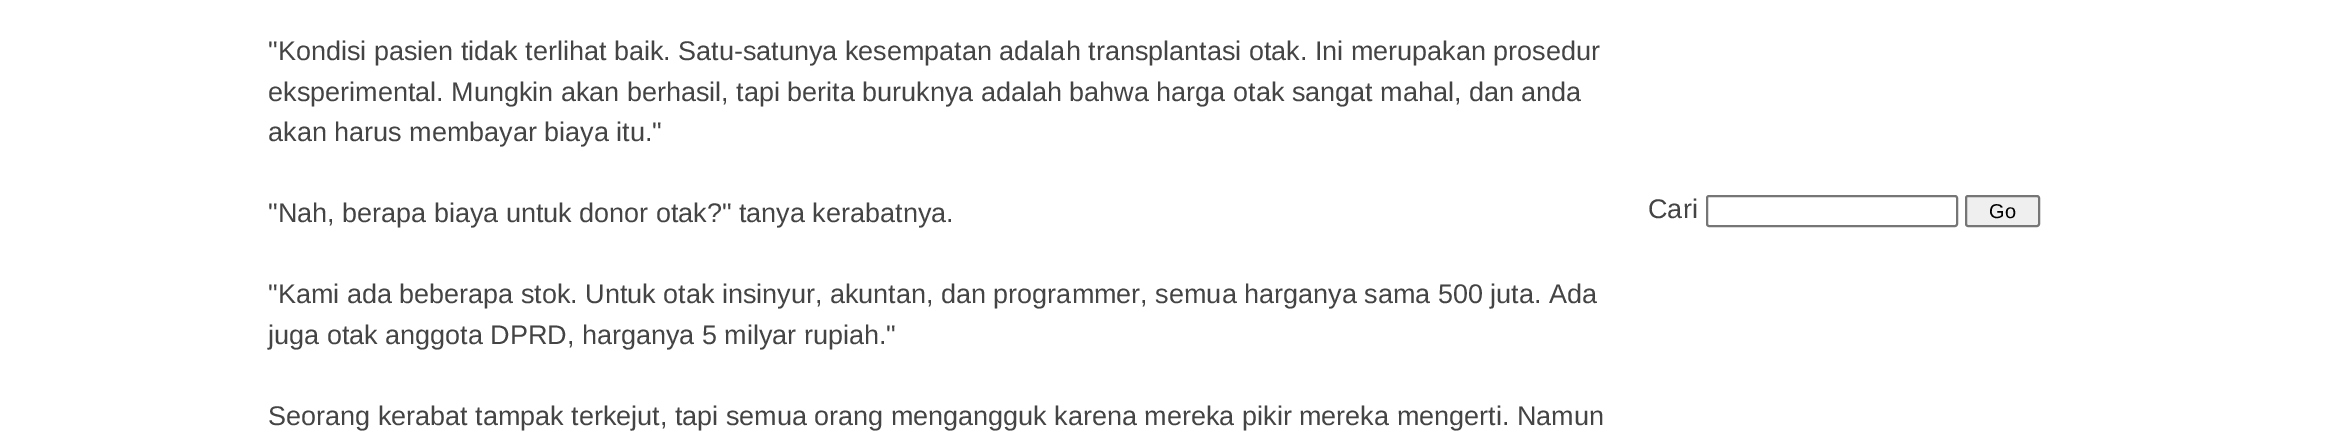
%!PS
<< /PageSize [2329 433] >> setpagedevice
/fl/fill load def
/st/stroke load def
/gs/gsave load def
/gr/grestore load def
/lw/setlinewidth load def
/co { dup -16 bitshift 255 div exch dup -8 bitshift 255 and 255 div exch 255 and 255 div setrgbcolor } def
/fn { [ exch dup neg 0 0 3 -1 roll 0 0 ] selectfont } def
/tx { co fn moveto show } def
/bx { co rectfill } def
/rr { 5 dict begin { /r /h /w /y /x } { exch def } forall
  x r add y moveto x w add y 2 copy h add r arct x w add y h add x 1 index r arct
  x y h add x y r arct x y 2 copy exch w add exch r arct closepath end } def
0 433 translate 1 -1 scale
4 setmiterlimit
0 0 2329 433 16#FFFFFF bx
16#767676 co
2 lw
1707 196 250 30 2 rr st
16#EFEFEF co
1966 196 73 30 2 rr gs fl gr
16#767676 co
st
("Kondisi pasien tidak terlihat baik. Satu-satunya kesempatan adalah transplantasi otak. Ini merupakan prosedur) 268 60 /LiberationSans-Regular 27 16#444444 tx
(eksperimental. Mungkin akan berhasil, tapi berita buruknya adalah bahwa harga otak sangat mahal, dan anda) 268 101 /LiberationSans-Regular 27 16#444444 tx
(akan harus membayar biaya itu.") 268 141 /LiberationSans-Regular 27 16#444444 tx
("Nah, berapa biaya untuk donor otak?" tanya kerabatnya.) 268 222 /LiberationSans-Regular 27 16#444444 tx
("Kami ada beberapa stok. Untuk otak insinyur, akuntan, dan programmer, semua harganya sama 500 juta. Ada) 268 303 /LiberationSans-Regular 27 16#444444 tx
(juga otak anggota DPRD, harganya 5 milyar rupiah.") 268 344 /LiberationSans-Regular 27 16#444444 tx
(Seorang kerabat tampak terkejut, tapi semua orang mengangguk karena mereka pikir mereka mengerti. Namun) 268 425 /LiberationSans-Regular 27 16#444444 tx
(Cari) 1648 218 /LiberationSans-Regular 27 16#444444 tx
(Go) 1989 218 /LiberationSans-Regular 20 16#000000 tx
showpage
